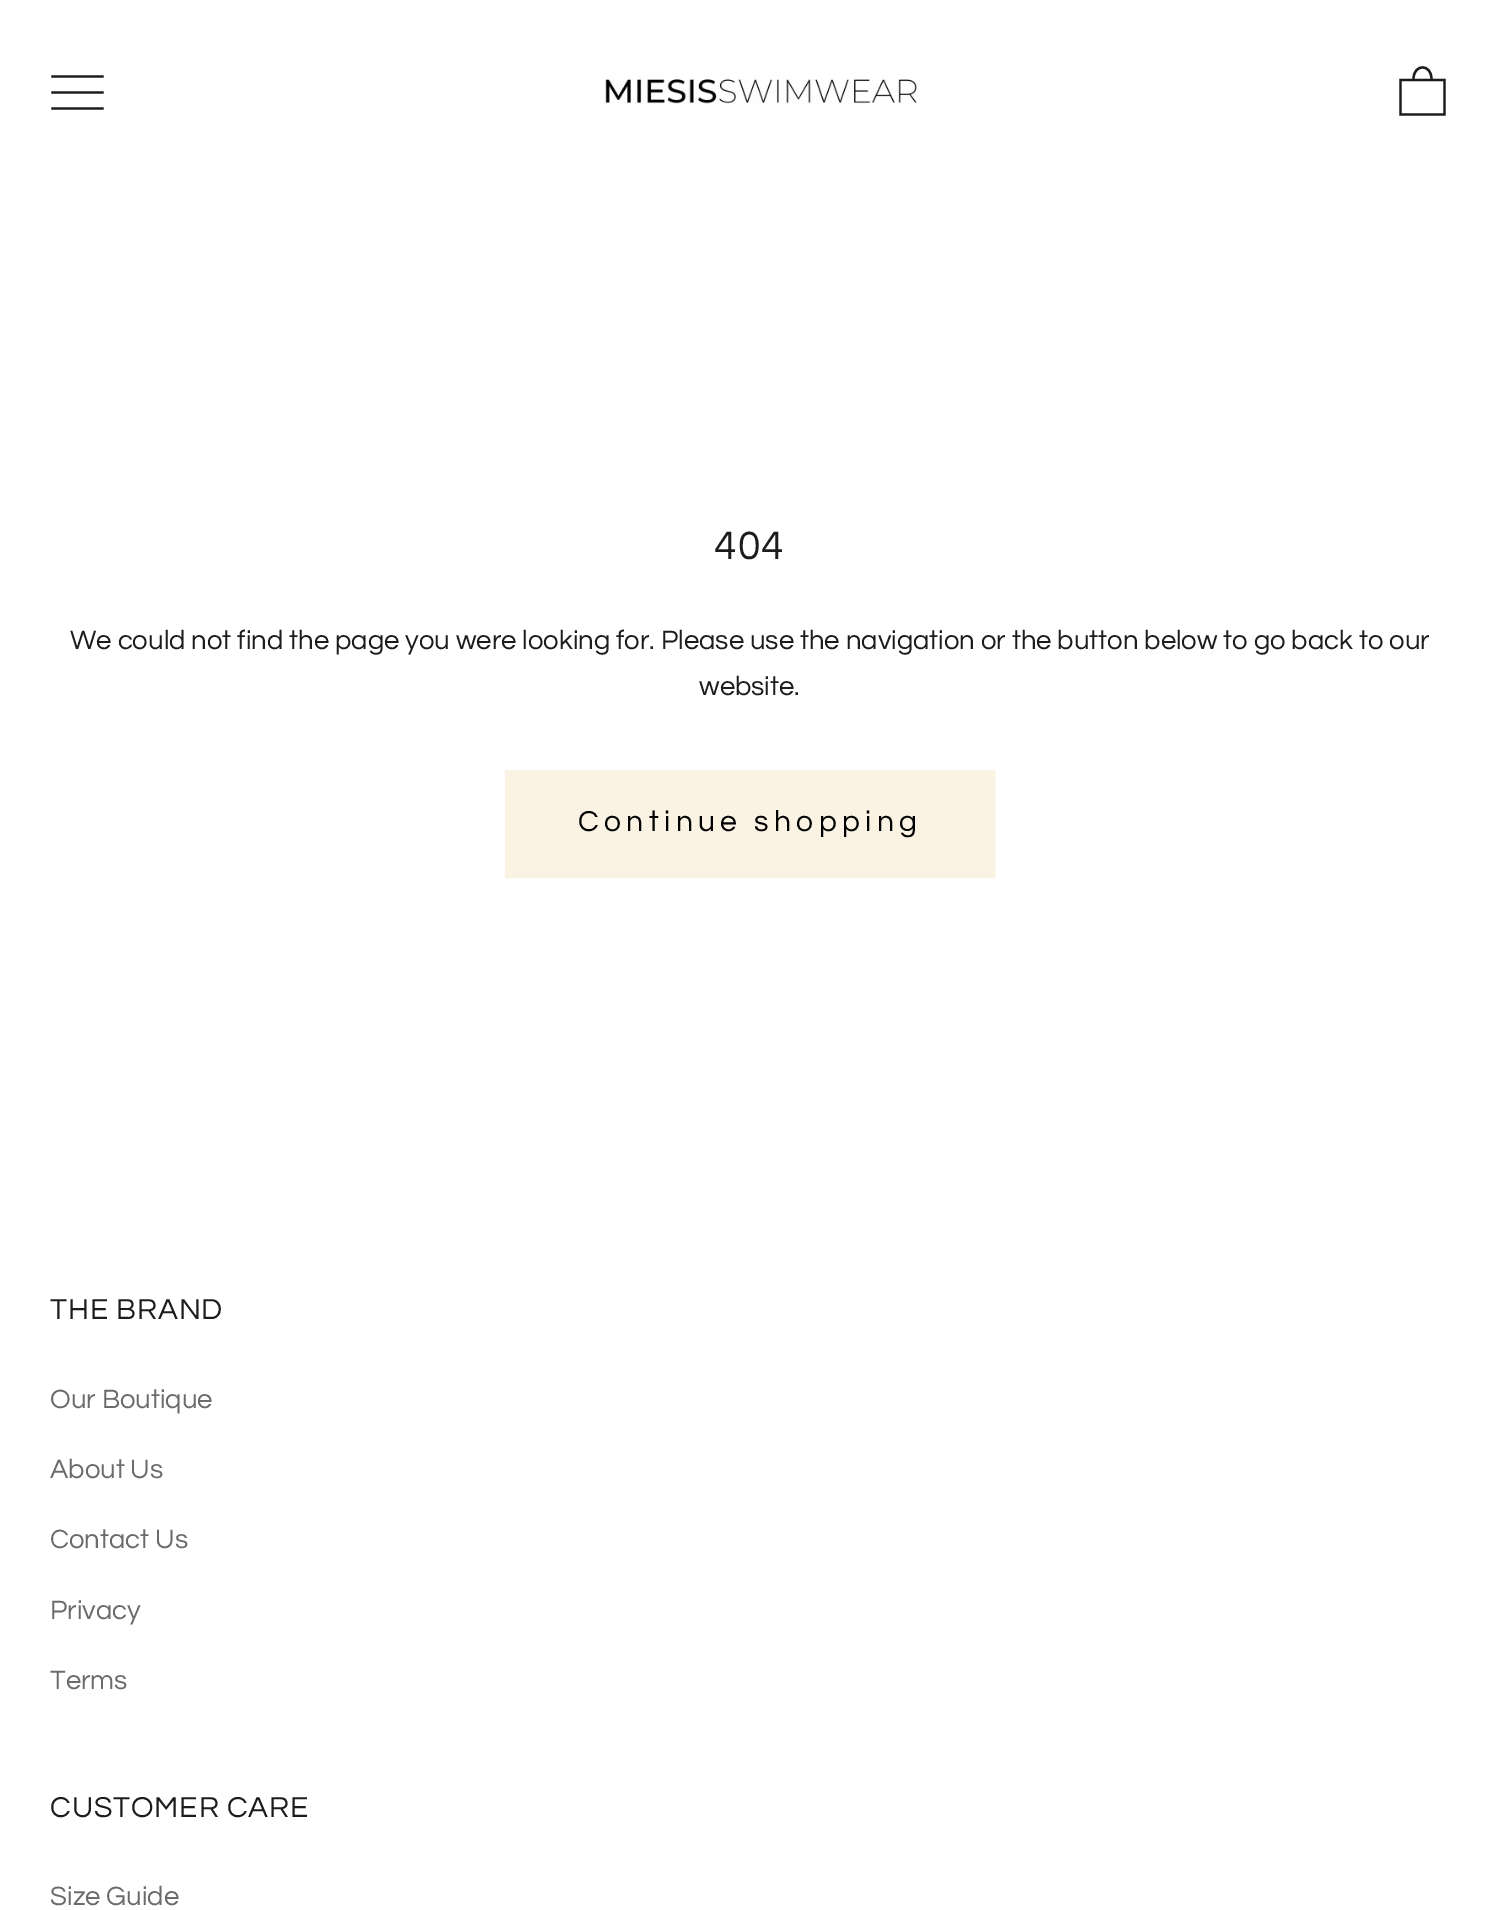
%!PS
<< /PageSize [1499 1910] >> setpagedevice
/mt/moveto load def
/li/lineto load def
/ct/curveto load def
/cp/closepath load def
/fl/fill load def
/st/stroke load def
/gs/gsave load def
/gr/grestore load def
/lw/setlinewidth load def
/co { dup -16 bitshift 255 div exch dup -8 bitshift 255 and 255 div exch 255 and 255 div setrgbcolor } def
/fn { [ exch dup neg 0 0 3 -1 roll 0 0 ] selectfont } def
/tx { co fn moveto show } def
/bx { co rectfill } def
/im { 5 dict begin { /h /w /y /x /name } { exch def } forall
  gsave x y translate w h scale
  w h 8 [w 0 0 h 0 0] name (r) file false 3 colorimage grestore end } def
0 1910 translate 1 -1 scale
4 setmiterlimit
0 0 1499 1910 16#FFFFFF bx
16#1C1C1C co
2.3 lw
2 setlinecap
52.5 108.5 mt 102.5 108.5 li 52.5 92.5 mt 102.5 92.5 li 52.5 76.5 mt 102.5 76.5 li st
(media/1.raw) 605 79 312 25 im
0 setlinecap
1444.5 114.5 mt 1444.5 80 li 1400.5 80 li 1400.5 114.5 li cp 1413.5 79 mt 1413.5 63.5 1431.5 63.5 1431.5 79 ct st
16#FAF3E4 co
506.5 771.5 mt 993.5 771.5 li 993.5 876.5 li 506.5 876.5 li cp gs fl gr
3 lw
st
/Questrial-Regular 41 fn
16#1C1C1C co
714 559 mt 1 0 (404) ashow
(We could not find the page you were looking for. Please use the navigation or the button below to go back to our) 70 649 /Questrial-Regular 27.5 16#1C1C1C tx
(website.) 699 695 /Questrial-Regular 27.5 16#1C1C1C tx
/Questrial-Regular 30 fn
16#000000 co
578 831 mt 5.4 0 (Continue shopping) ashow
16#1C1C1C co
50 1319 mt .9 0 (THE BRAND) ashow
(Our Boutique) 50 1408 /Questrial-Regular 27.5 16#6B6B6B tx
(About Us) 50 1478 /Questrial-Regular 27.5 16#6B6B6B tx
(Contact Us) 50 1548 /Questrial-Regular 27.5 16#6B6B6B tx
(Privacy) 50 1619 /Questrial-Regular 27.5 16#6B6B6B tx
(Terms) 50 1689 /Questrial-Regular 27.5 16#6B6B6B tx
/Questrial-Regular 30 fn
16#1C1C1C co
50 1817 mt .9 0 (CUSTOMER CARE) ashow
(Size Guide) 50 1905 /Questrial-Regular 27.5 16#6B6B6B tx
showpage
